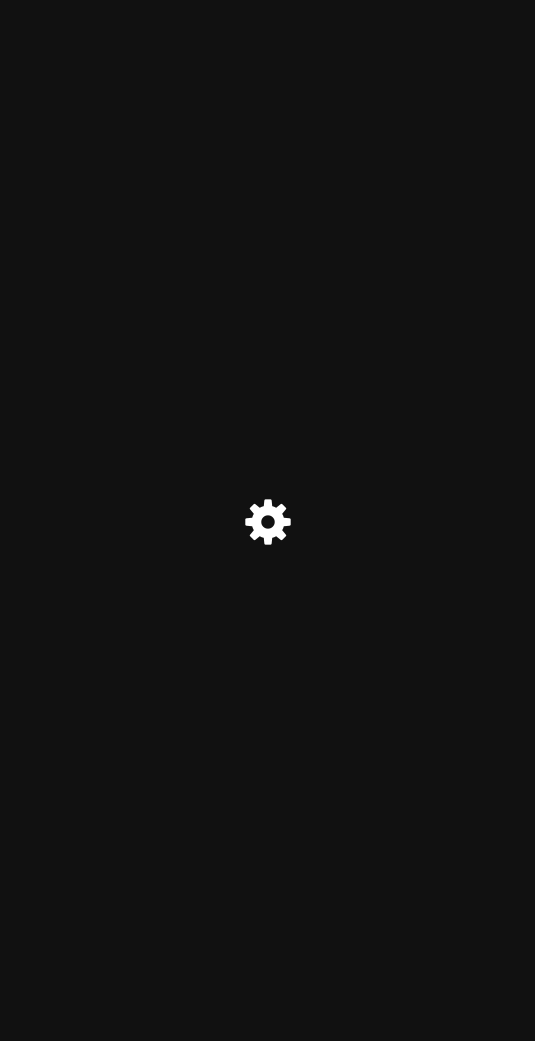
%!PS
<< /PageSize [535 1041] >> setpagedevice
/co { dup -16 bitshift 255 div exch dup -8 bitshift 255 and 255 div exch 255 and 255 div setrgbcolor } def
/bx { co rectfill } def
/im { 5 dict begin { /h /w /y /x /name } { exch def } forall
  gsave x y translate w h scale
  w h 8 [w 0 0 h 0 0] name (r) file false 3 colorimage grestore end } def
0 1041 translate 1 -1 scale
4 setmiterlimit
0 0 535 1041 16#111111 bx
(media/1.raw) 245 499 46 46 im
showpage
